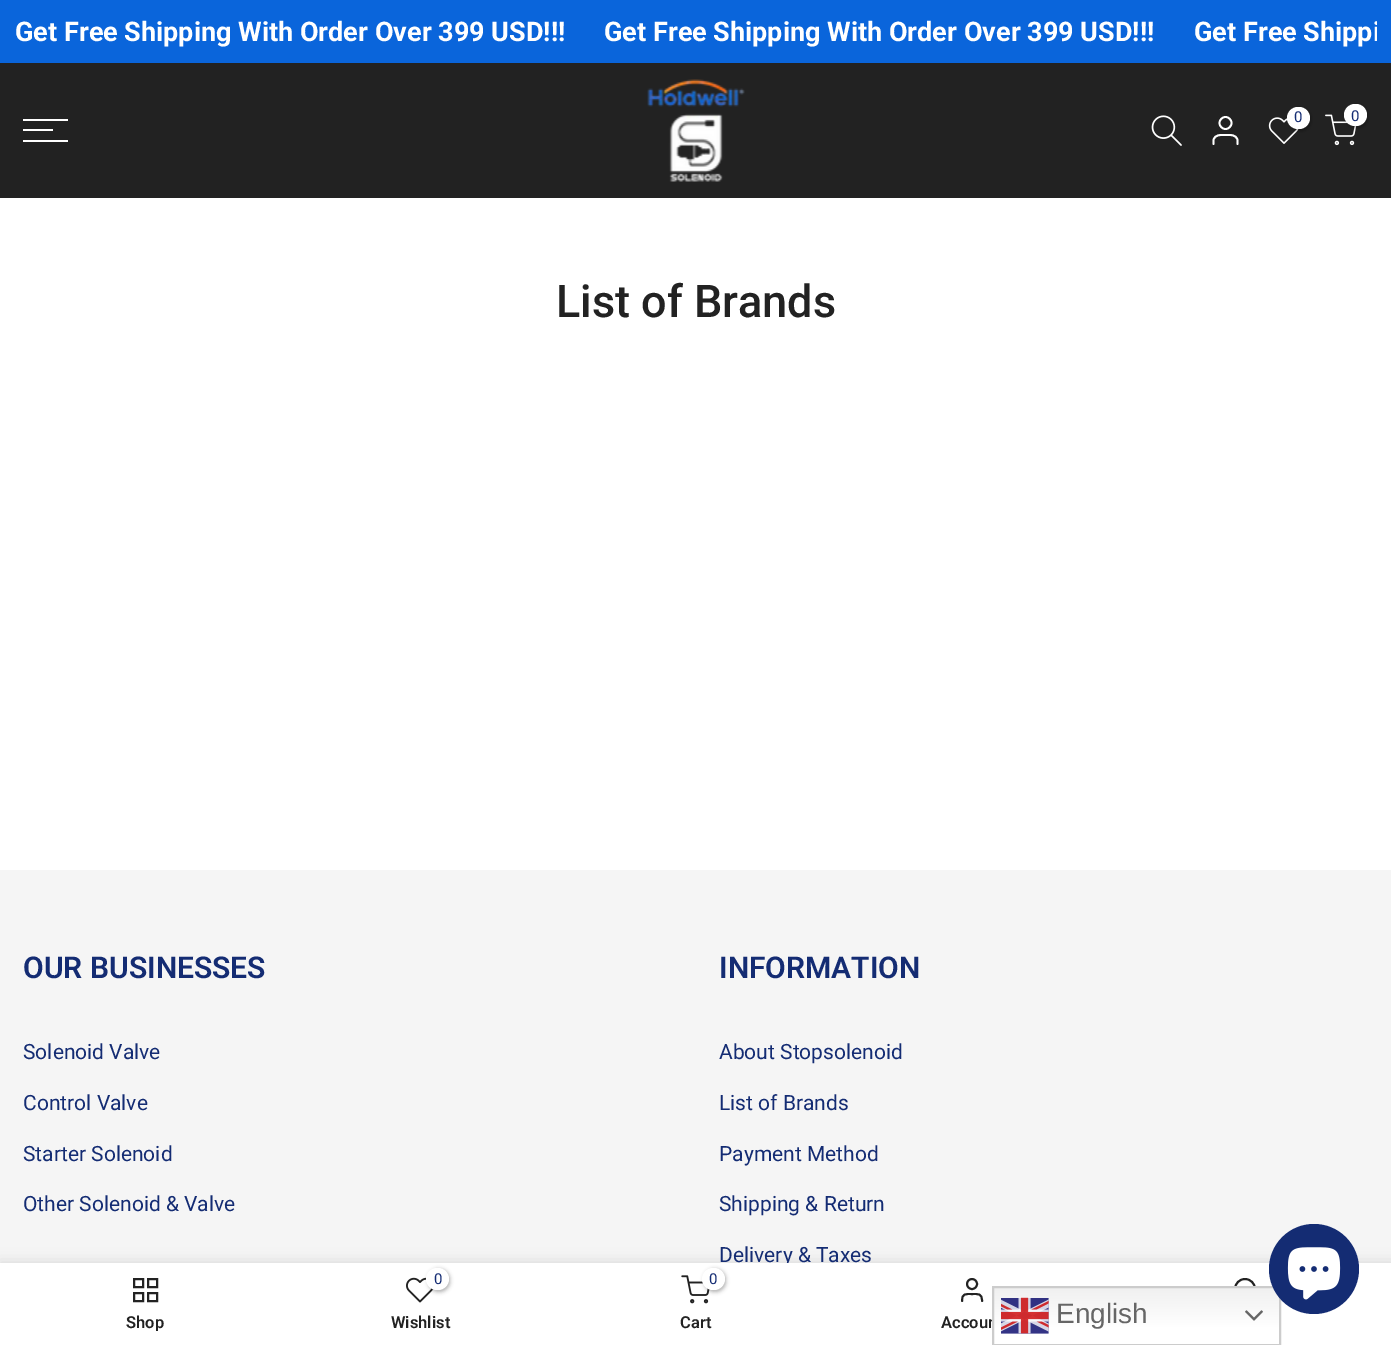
%!PS
<< /PageSize [1391 1345] /PageUsesTransparency true >> setpagedevice
/mt/moveto load def
/li/lineto load def
/ct/curveto load def
/cp/closepath load def
/fl/fill load def
/st/stroke load def
/gs/gsave load def
/gr/grestore load def
/lw/setlinewidth load def
/co { dup -16 bitshift 255 div exch dup -8 bitshift 255 and 255 div exch 255 and 255 div setrgbcolor } def
/fn { [ exch dup neg 0 0 3 -1 roll 0 0 ] selectfont } def
/tx { co fn moveto show } def
/bx { co rectfill } def
/al { dup .setfillconstantalpha .setstrokeconstantalpha } def
/ci { newpath 0 360 arc closepath } def
/rr { 5 dict begin { /r /h /w /y /x } { exch def } forall
  x r add y moveto x w add y 2 copy h add r arct x w add y h add x 1 index r arct
  x y h add x y r arct x y 2 copy exch w add exch r arct closepath end } def
/sh { 12 dict begin { /a /b /q /h /w /y /x } { exch def } forall gsave /was 0 def
  9 -2 -9 { dup b mul 4 div /e exch def 1 sub .425 mul 2.718 exch exp 1 add a .99 .min exch div /now exch def
    1 1 now sub 1 was sub div sub al /was now def
    w h .min e 2 mul add 0 gt { x e sub y e sub w e 2 mul add h e 2 mul add
      q e add b .6 mul add w h .min 2 div e add .min 0 .max rr fill } if } for grestore end } def
/im { 5 dict begin { /h /w /y /x /name } { exch def } forall
  gsave x y translate w h scale
  w h 8 [w 0 0 h 0 0] name (r) file false 3 colorimage grestore end } def
0 .pushpdf14devicefilter
0 1345 translate 1 -1 scale
4 setmiterlimit
0 0 1391 1345 16#FFFFFF bx
0 0 1391 63 16#0A65DB bx
0 63 1391 135 16#222222 bx
(media/1.raw) 647 79 98 103 im
(media/2.raw) 1151 115 31 31 im
16#FFFFFF co
1.8 lw
1225.5 123 6 ci st
1 setlinecap
1 setlinejoin
1237.5 144 mt 1237.5 140 li 1236 134 1230 135 1225.5 135 ct 1221 135 1215 134 1213.5 140 ct 1213.5 144 li st
(media/3.raw) 1268 117 31 27 im
16#000000 co
1289 108 22 23 11 2 .3 sh
16#FFFFFF co
1287 107 23 22 11 rr fl
(media/4.raw) 1325 114 32 32 im
16#000000 co
1346 105 22 23 11 2 .3 sh
16#FFFFFF co
1344 104 23 22 11 rr fl
23 119 45 2 16#FFFFFF bx
23 129 30 2 16#FFFFFF bx
23 140 45 2 16#FFFFFF bx
0 870 1391 393 16#F5F5F5 bx
16#000000 co
0 1263 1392 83 0 7 .12 sh
(Get Free Shipping With Order Over 399 USD!!!) 15 41 /Roboto-Bold 27 16#FFFFFF tx
(Get Free Shipping With Order Over 399 USD!!!) 604 41 /Roboto-Bold 27 16#FFFFFF tx
gs
15 15 1362 33 rectclip
(Get Free Shippi) 1194 41 /Roboto-Bold 27 16#FFFFFF tx
gr
(0) 1294 122 /Roboto-Regular 15 16#142C73 tx
(0) 1351 121 /Roboto-Regular 15 16#142C73 tx
(List of Brands) 556 317 /Roboto-Medium 45 16#222222 tx
(OUR BUSINESSES) 23 978 /Roboto-SemiBold 30 16#142C73 tx
(Solenoid Valve) 23 1059 /Roboto-Regular 21 16#142C73 tx
(Control Valve) 23 1110 /Roboto-Regular 21 16#142C73 tx
(Starter Solenoid) 23 1161 /Roboto-Regular 21 16#142C73 tx
(Other Solenoid & Valve) 23 1211 /Roboto-Regular 21 16#142C73 tx
(INFORMATION) 719 978 /Roboto-SemiBold 30 16#142C73 tx
(About Stopsolenoid) 719 1059 /Roboto-Regular 21 16#142C73 tx
(List of Brands) 719 1110 /Roboto-Regular 21 16#142C73 tx
(Payment Method) 719 1161 /Roboto-Regular 21 16#142C73 tx
(Shipping & Return) 719 1211 /Roboto-Regular 21 16#142C73 tx
(Delivery & Taxes) 719 1262 /Roboto-Regular 21 16#142C73 tx
0 1263 1391 82 16#FFFFFF bx
(media/5.raw) 406 1277 28 26 im
16#000000 co
428 1269 22 23 11 2 .3 sh
16#FFFFFF co
426 1268 23 22 11 rr fl
(0) 434 1284 /Roboto-Regular 15 16#142C73 tx
(Wishlist) 391 1328 /Roboto-SemiBold 16.5 16#222222 tx
(media/6.raw) 681 1275 29 29 im
16#000000 co
704 1269 22 23 11 2 .3 sh
16#FFFFFF co
702 1268 23 22 11 rr fl
(0) 709 1284 /Roboto-Regular 15 16#142C73 tx
(Cart) 680 1328 /Roboto-SemiBold 16.5 16#222222 tx
1.9 lw
0 setlinecap
0 setlinejoin
1245 1289 10 ci st
2 lw
134 1279 9 8 rectstroke
148 1279 9 8 rectstroke
134 1293 9 8 rectstroke
148 1293 9 8 rectstroke
gs
23 1314 246 17 rectclip
(Shop) 126 1328 /Roboto-SemiBold 16.5 16#222222 tx
gr
1.9 lw
972 1284 5 ci st
1 setlinecap
1 setlinejoin
982 1301 mt 982 1293.5 979 1294 972 1294 ct 965 1294 962 1293.5 962 1301 ct st
(Accoun) 941 1328 /Roboto-SemiBold 16.5 16#222222 tx
gs 994 1288 mt 1279 1288 li 1279 1328 li 994 1328 li cp clip newpath
<< /ShadingType 2 /ColorSpace /DeviceRGB /Coords [1136 1286 1136 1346] /Extend [true true] /Function << /FunctionType 3 /Domain [0 1] /Functions [<< /FunctionType 2 /Domain [0 1] /C0 [.937 .937 .937] /C1 [1 1 1] /N 1 >> << /FunctionType 2 /Domain [0 1] /C0 [1 1 1] /C1 [1 1 1] /N 1 >>] /Bounds [.7] /Encode [0 1 0 1] >> >> shfill gr
16#CCCCCC co
2 lw
0 setlinecap
0 setlinejoin
993 1287 287 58 rectstroke
(media/7.raw) 1001 1297 48 37 im
(English) 1056 1323 /LiberationSans-Regular 28 16#666666 tx
(media/8.raw) 1245 1310 18 11 im
16#142C73 co
1314 1269 45 ci fl
(media/9.raw) 1287 1247 54 53 im
.poppdf14devicefilter showpage
